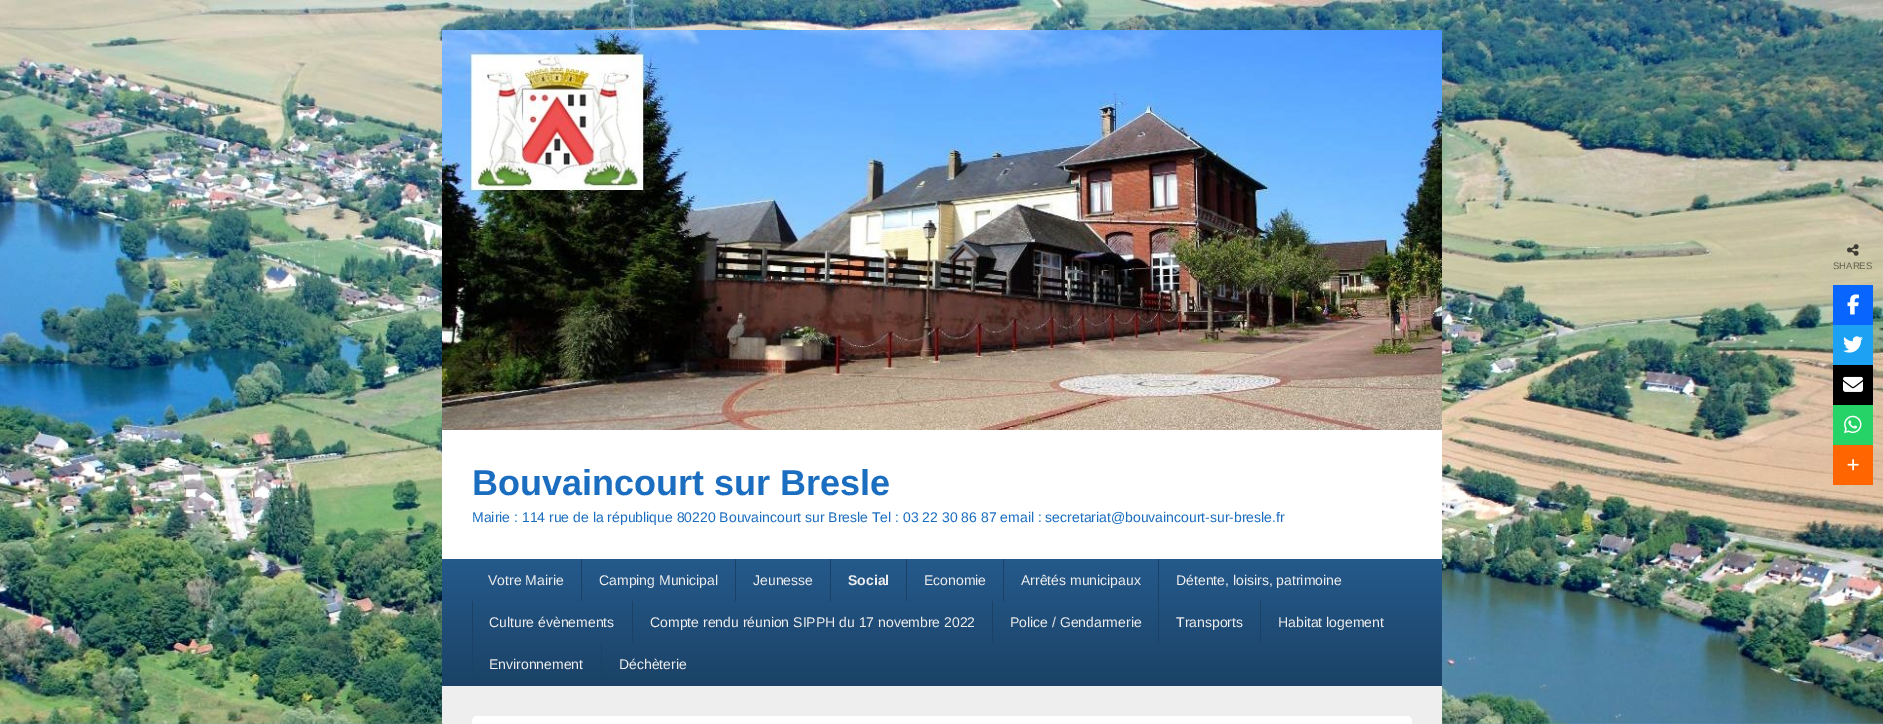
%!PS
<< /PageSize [1883 724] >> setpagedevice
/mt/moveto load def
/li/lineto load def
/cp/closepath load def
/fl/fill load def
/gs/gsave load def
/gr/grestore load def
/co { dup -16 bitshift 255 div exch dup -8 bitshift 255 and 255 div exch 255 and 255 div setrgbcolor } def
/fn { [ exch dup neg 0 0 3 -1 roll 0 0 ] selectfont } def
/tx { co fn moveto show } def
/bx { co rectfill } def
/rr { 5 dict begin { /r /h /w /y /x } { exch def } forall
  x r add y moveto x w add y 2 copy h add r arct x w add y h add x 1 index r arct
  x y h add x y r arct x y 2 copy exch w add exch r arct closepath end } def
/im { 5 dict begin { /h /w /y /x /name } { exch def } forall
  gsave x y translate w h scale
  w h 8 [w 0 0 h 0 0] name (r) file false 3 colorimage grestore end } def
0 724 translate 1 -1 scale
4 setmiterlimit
0 0 1883 724 16#FFFFFF bx
(media/1.raw) 0 0 1883 724 im
(media/2.raw) 1847 244 12 12 im
1833 285 40 40 16#0866FF bx
(media/3.raw) 1847 294 12 21 im
1833 325 40 40 16#1DA1F2 bx
(media/4.raw) 1843 336 20 17 im
1833 365 40 40 16#000000 bx
(media/5.raw) 1843 376 20 16 im
1833 405 40 40 16#25D366 bx
(media/6.raw) 1844 415 18 19 im
1833 445 40 40 16#FF6500 bx
(media/7.raw) 1847 459 12 12 im
442 686 1000 38 16#EEEEEE bx
442 430 1000 129 16#FFFFFF bx
(media/8.raw) 442 30 1000 400 im
gs 442 559 mt 1442 559 li 1442 685 li 442 685 li cp clip newpath
<< /ShadingType 2 /ColorSpace /DeviceRGB /Coords [942 559 942 685] /Extend [true true] /Function << /FunctionType 2 /Domain [0 1] /C0 [.145 .353 .549] /C1 [.106 .259 .4] /N 1 >> >> shfill gr
442 685 1000 1 16#1B4266 bx
581 559 1 42 16#1B4266 bx
735 559 1 42 16#1B4266 bx
830 559 1 42 16#1B4266 bx
906 559 1 42 16#1B4266 bx
1003 559 1 42 16#1B4266 bx
1158 559 1 84 16#1B4266 bx
472 601 1 84 16#1B4266 bx
632 601 1 42 16#1B4266 bx
992 601 1 42 16#1B4266 bx
1260 601 1 42 16#1B4266 bx
601 643 1 42 16#1B4266 bx
16#FFFFFF co
472 716 940 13 5 rr fl
(SHARES) 1833 269 /LiberationSans-Regular 9.5 16#646251 tx
(Bouvaincourt sur Bresle) 472 495 /LiberationSans-Bold 36 16#1A6DBF tx
(Mairie : 114 rue de la république 80220 Bouvaincourt sur Bresle Tel : 03 22 30 86 87 email : secretariat@bouvaincourt-sur-bresle.fr) 472 522 /LiberationSans-Regular 14 16#1A6DBF tx
(Votre Mairie) 488 585 /LiberationSans-Regular 14 16#EEEEEE tx
(Camping Municipal) 599 585 /LiberationSans-Regular 14 16#EEEEEE tx
(Jeunesse) 753 585 /LiberationSans-Regular 14 16#EEEEEE tx
(Social) 848 585 /LiberationSans-Bold 14 16#EEEEEE tx
(Economie) 924 585 /LiberationSans-Regular 14 16#EEEEEE tx
(Arrêtés municipaux) 1021 585 /LiberationSans-Regular 14 16#EEEEEE tx
(Détente, loisirs, patrimoine) 1176 585 /LiberationSans-Regular 14 16#EEEEEE tx
(Culture évènements) 489 627 /LiberationSans-Regular 14 16#EEEEEE tx
(Compte rendu réunion SIPPH du 17 novembre 2022) 650 627 /LiberationSans-Regular 14 16#EEEEEE tx
(Police / Gendarmerie) 1010 627 /LiberationSans-Regular 14 16#EEEEEE tx
(Transports) 1176 627 /LiberationSans-Regular 14 16#EEEEEE tx
(Habitat logement) 1278 627 /LiberationSans-Regular 14 16#EEEEEE tx
(Environnement) 489 669 /LiberationSans-Regular 14 16#EEEEEE tx
(Déchèterie) 619 669 /LiberationSans-Regular 14 16#EEEEEE tx
showpage
